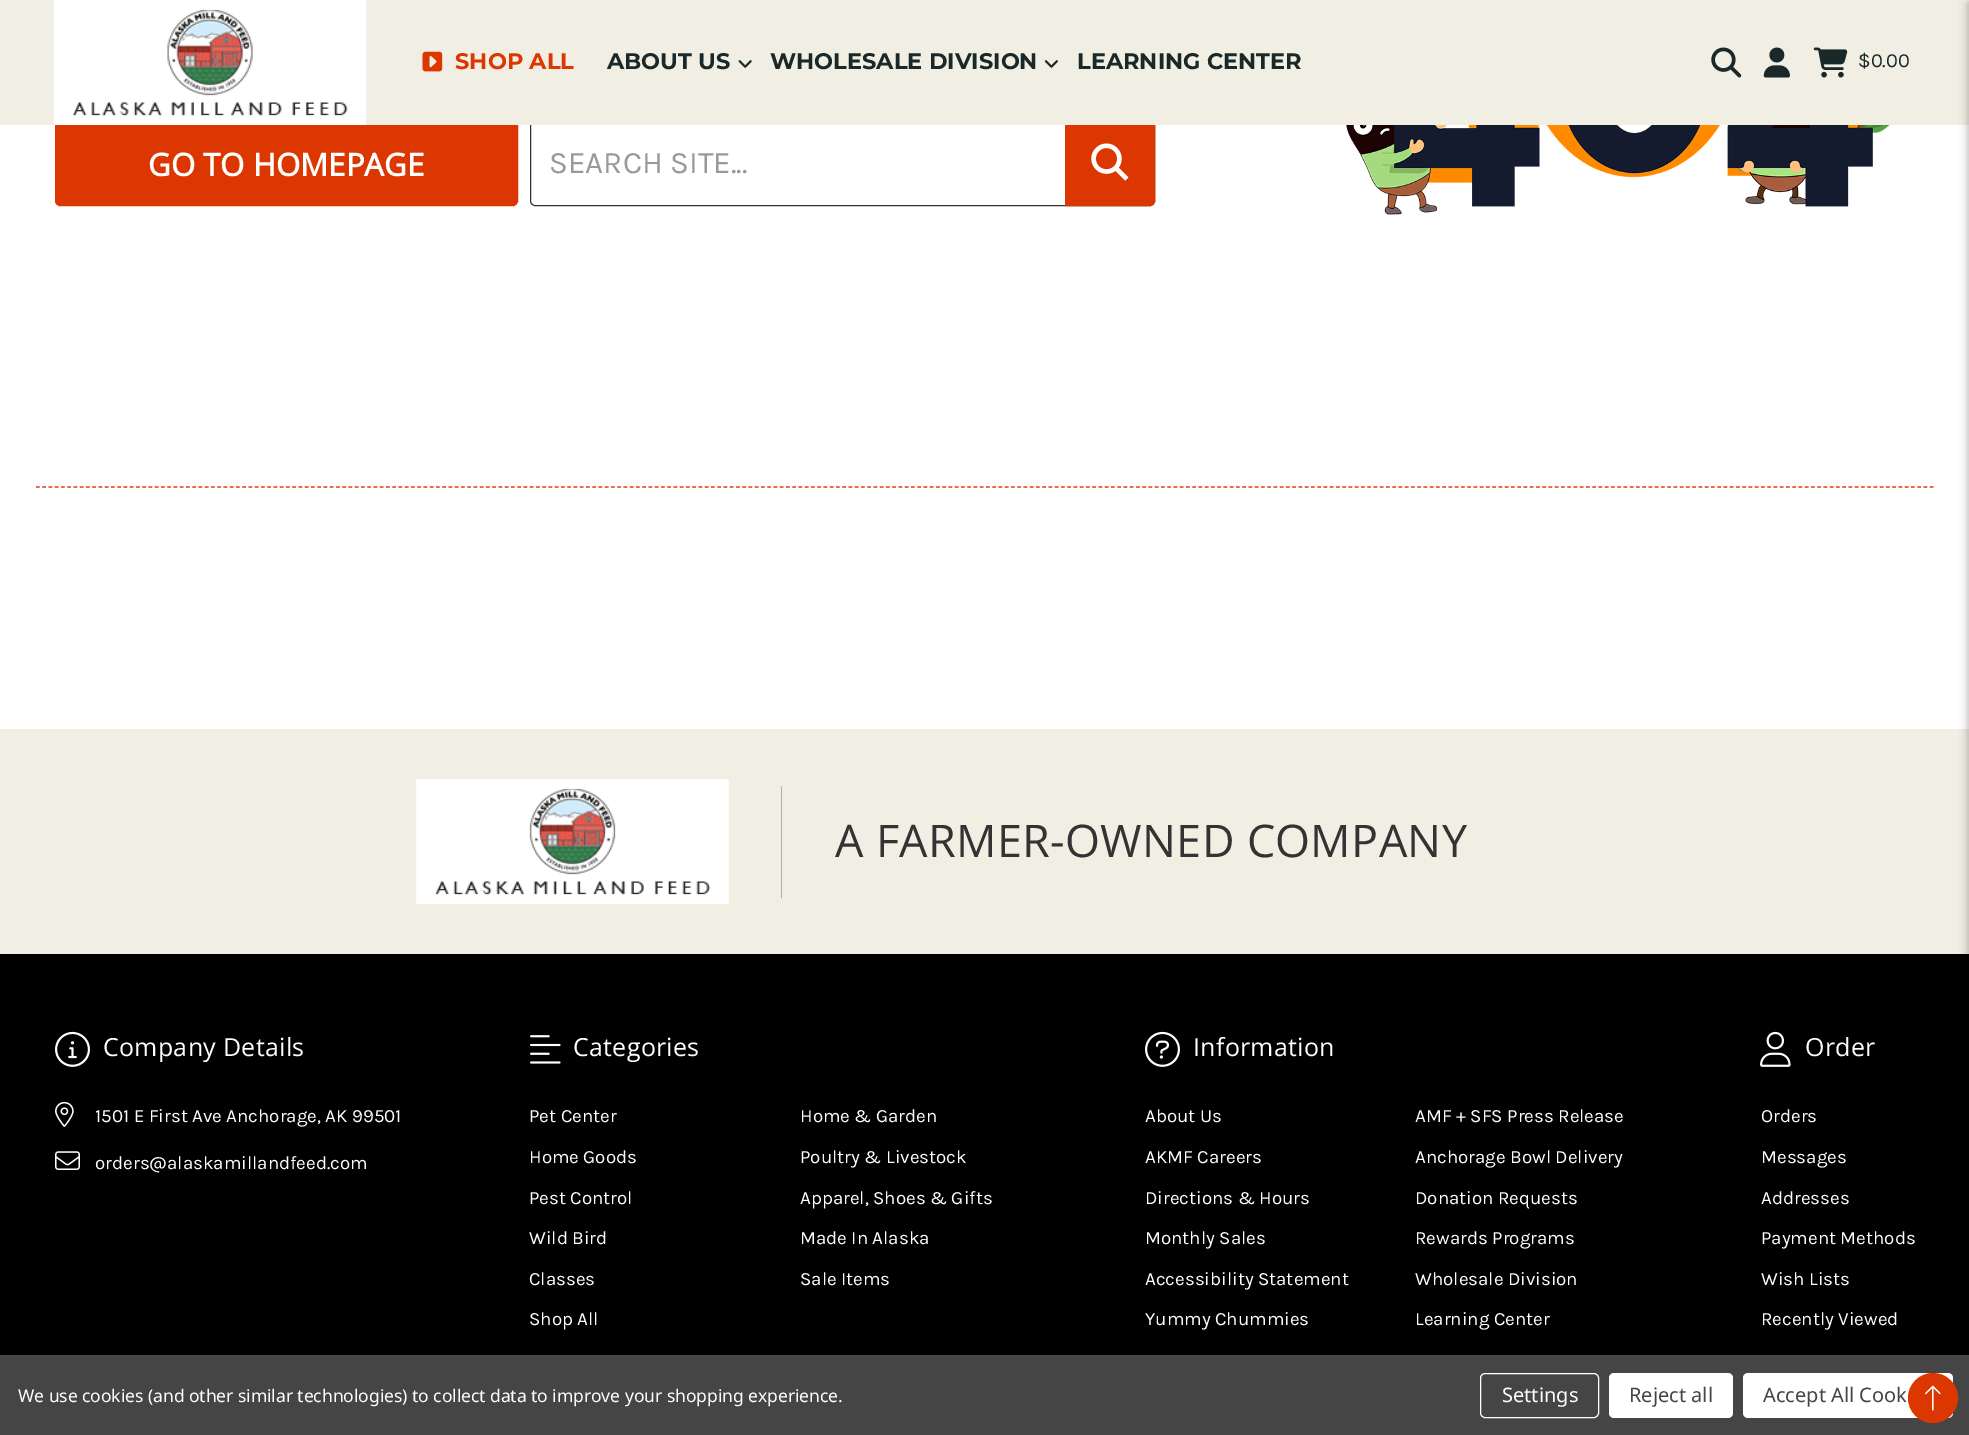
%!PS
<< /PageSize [1969 1435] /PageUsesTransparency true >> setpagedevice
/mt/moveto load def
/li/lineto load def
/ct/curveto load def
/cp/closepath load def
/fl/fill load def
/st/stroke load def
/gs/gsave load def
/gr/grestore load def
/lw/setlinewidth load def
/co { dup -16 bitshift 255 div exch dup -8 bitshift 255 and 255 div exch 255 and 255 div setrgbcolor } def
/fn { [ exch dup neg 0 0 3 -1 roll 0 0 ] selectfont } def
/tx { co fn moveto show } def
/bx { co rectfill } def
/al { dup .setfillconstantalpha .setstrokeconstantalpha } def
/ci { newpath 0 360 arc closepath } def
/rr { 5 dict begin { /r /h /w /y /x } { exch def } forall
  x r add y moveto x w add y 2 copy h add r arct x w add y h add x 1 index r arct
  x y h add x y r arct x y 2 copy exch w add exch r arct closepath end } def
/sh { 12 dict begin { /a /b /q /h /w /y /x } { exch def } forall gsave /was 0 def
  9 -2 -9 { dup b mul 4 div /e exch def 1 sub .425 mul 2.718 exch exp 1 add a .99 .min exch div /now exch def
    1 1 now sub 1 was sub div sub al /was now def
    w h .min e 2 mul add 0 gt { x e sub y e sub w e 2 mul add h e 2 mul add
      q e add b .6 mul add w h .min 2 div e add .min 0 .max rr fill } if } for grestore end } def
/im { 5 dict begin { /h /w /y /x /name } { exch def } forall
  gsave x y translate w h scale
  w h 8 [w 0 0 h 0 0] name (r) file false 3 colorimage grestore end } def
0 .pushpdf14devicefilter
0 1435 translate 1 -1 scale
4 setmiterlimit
0 0 1969 1435 16#FFFFFF bx
16#DC3700 co
55.5 119.5 462 86 4.5 rr gs fl gr
st
16#333333 co
530.5 119.5 624 86 4.5 rr st
16#DC3700 co
1065.5 119.5 mt 1150 119.5 li 1152.5 119.5 1154.5 121.5 1154.5 124 ct 1154.5 201 li 1154.5 203.5 1152.5 205.5 1150 205.5 ct 1065.5 205.5 li cp gs fl gr
st
0 0 1969 125 16#F1EEE3 bx
0 729 1969 225 16#F1EEE3 bx
0 954 1969 401 16#000000 bx
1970 4 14 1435 0 5 .24 sh
(media/1.raw) 53 0 314 125 im
(media/2.raw) 422 51 21 21 im
(media/3.raw) 738 60 14 8 im
(media/4.raw) 1044 60 14 8 im
(media/5.raw) 1711 47 31 31 im
(media/6.raw) 1763 47 27 31 im
(media/7.raw) 1813 47 35 31 im
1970 4 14 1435 0 5 .24 sh
16#DC3700 co
1.2 lw
[3.75 2.5] 0 setdash
36 487 mt 1934 487 li st
(media/8.raw) 1091 143 38 38 im
(media/9.raw) 1346 125 544 90 im
(media/10.raw) 416 779 313 125 im
781 786 1 112 16#AFADA5 bx
(media/11.raw) 55 1031 35 36 im
(media/12.raw) 55 1101 19 26 im
(media/13.raw) 55 1151 25 19 im
(media/14.raw) 530 1035 31 29 im
(media/15.raw) 1145 1031 35 36 im
(media/16.raw) 1760 1031 31 36 im
0 1355 1969 80 16#454545 bx
16#FFFFFF co
1 lw
[] 0 setdash
1480.5 1373.5 118 44 4.5 rr st
1609 1373 124 45 5 rr fl
1743 1373 210 45 5 rr fl
16#DC3700 co
1933 1398 23.5 ci gs fl gr
3 lw
st
(media/17.raw) 1925 1385 16 26 im
(SHOP ALL) 455 69 /Montserrat-Bold 22.5 16#DC3700 tx
(ABOUT US) 607 69 /Montserrat-Bold 22.5 16#1A2829 tx
(WHOLESALE DIVISION) 770 69 /Montserrat-Bold 22.5 16#1A2829 tx
(LEARNING CENTER) 1077 69 /Montserrat-Bold 22.5 16#1A2829 tx
($0.00) 1858 67 /Karla-Regular 20 16#1A2829 tx
(GO TO HOMEPAGE) 148 176 /OpenSans-Bold 31.25 16#FFFFFF tx
(SEARCH SITE...) 549 173 /Karla-Regular 31.25 16#999999 tx
/OpenSans-Regular 45 fn
16#333333 co
835 857 mt .3 0 (A FARMER-OWNED COMPANY) ashow
/OpenSans-Regular 25 fn
16#FFFFFF co
103 1056 mt .3 0 (Company Details) ashow
(1501 E First Ave Anchorage, AK 99501) 95 1122 /Karla-Regular 18.75 16#FFFFFF tx
(orders@alaskamillandfeed.com) 95 1169 /Karla-Regular 18.75 16#FFFFFF tx
/OpenSans-Regular 25 fn
573 1056 mt .3 0 (Categories) ashow
(Pet Center) 529 1122 /Karla-Regular 18.75 16#FFFFFF tx
(Home & Garden) 800 1122 /Karla-Regular 18.75 16#FFFFFF tx
(Home Goods) 529 1163 /Karla-Regular 18.75 16#FFFFFF tx
(Poultry & Livestock) 800 1163 /Karla-Regular 18.75 16#FFFFFF tx
(Pest Control) 529 1204 /Karla-Regular 18.75 16#FFFFFF tx
(Apparel, Shoes & Gifts) 800 1204 /Karla-Regular 18.75 16#FFFFFF tx
(Wild Bird) 529 1244 /Karla-Regular 18.75 16#FFFFFF tx
(Made In Alaska) 800 1244 /Karla-Regular 18.75 16#FFFFFF tx
(Classes) 529 1285 /Karla-Regular 18.75 16#FFFFFF tx
(Sale Items) 800 1285 /Karla-Regular 18.75 16#FFFFFF tx
(Shop All) 529 1325 /Karla-Regular 18.75 16#FFFFFF tx
/OpenSans-Regular 25 fn
1193 1056 mt .3 0 (Information) ashow
(About Us) 1145 1122 /Karla-Regular 18.75 16#FFFFFF tx
(AMF + SFS Press Release) 1415 1122 /Karla-Regular 18.75 16#FFFFFF tx
(AKMF Careers) 1145 1163 /Karla-Regular 18.75 16#FFFFFF tx
(Anchorage Bowl Delivery) 1415 1163 /Karla-Regular 18.75 16#FFFFFF tx
(Directions & Hours) 1145 1204 /Karla-Regular 18.75 16#FFFFFF tx
(Donation Requests) 1415 1204 /Karla-Regular 18.75 16#FFFFFF tx
(Monthly Sales) 1145 1244 /Karla-Regular 18.75 16#FFFFFF tx
(Rewards Programs) 1415 1244 /Karla-Regular 18.75 16#FFFFFF tx
(Accessibility Statement) 1145 1285 /Karla-Regular 18.75 16#FFFFFF tx
(Wholesale Division) 1415 1285 /Karla-Regular 18.75 16#FFFFFF tx
(Yummy Chummies) 1145 1325 /Karla-Regular 18.75 16#FFFFFF tx
(Learning Center) 1415 1325 /Karla-Regular 18.75 16#FFFFFF tx
/OpenSans-Regular 25 fn
1805 1056 mt .3 0 (Order) ashow
(Orders) 1761 1122 /Karla-Regular 18.75 16#FFFFFF tx
(Messages) 1761 1163 /Karla-Regular 18.75 16#FFFFFF tx
(Addresses) 1761 1204 /Karla-Regular 18.75 16#FFFFFF tx
(Payment Methods) 1761 1244 /Karla-Regular 18.75 16#FFFFFF tx
(Wish Lists) 1761 1285 /Karla-Regular 18.75 16#FFFFFF tx
(Recently Viewed) 1761 1325 /Karla-Regular 18.75 16#FFFFFF tx
/NotoSans-Regular 17.5 fn
18 1402 mt -.05 0 (We use cookies \(and other similar technologies\) to collect data to improve your shopping experience.) ashow
(Settings) 1502 1402 /NotoSans-Regular 20 16#FFFFFF tx
(Reject all) 1629 1402 /NotoSans-Regular 20 16#454545 tx
(Accept All Cook) 1763 1402 /NotoSans-Regular 20 16#454545 tx
.poppdf14devicefilter showpage
